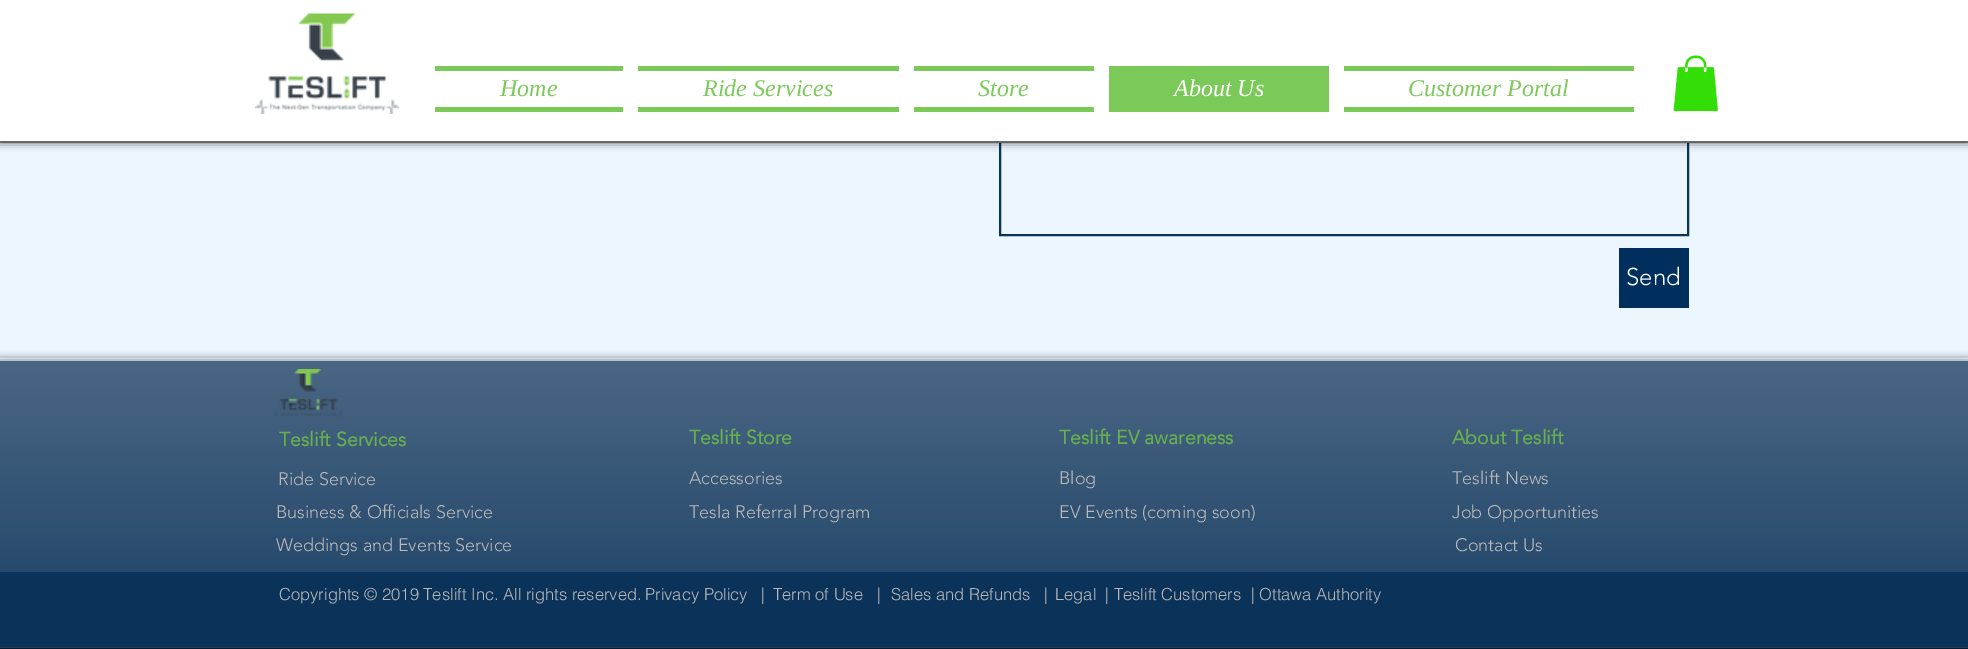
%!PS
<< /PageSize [1968 649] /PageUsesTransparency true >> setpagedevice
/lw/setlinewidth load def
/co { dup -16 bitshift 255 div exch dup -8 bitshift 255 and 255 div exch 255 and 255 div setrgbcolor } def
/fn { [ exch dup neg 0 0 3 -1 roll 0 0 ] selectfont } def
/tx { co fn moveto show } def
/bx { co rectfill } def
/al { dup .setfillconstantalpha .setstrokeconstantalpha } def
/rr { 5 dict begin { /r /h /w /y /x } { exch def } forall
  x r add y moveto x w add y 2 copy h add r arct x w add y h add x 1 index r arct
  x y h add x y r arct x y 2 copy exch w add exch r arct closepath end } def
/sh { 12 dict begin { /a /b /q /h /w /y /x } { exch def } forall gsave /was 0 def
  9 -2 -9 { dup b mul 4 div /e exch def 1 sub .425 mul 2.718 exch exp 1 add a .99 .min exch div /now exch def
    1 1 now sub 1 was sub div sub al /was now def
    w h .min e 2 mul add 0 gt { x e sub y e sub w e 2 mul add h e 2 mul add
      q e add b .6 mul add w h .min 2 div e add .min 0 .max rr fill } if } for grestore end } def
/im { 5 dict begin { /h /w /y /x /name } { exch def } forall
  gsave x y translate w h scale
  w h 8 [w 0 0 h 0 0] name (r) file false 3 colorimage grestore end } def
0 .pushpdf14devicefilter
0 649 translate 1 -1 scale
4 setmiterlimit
0 0 1968 649 16#EBF6FE bx
16#0B3259 co
2 lw
1000 42 688 193 rectstroke
16#000000 co
0 0 1968 143 0 4 .6 sh
0 0 1968 141 16#FFFFFF bx
0 141 1968 2 16#666666 bx
(media/1.raw) 255 13 144 101 im
435 66 188 5 16#7AC959 bx
435 107 188 5 16#7AC959 bx
638 66 261 5 16#7AC959 bx
638 107 261 5 16#7AC959 bx
914 66 180 5 16#7AC959 bx
914 107 180 5 16#7AC959 bx
1109 66 220 46 16#7AC959 bx
1344 66 290 5 16#7AC959 bx
1344 107 290 5 16#7AC959 bx
(media/2.raw) 1673 55 45 57 im
1619 248 70 60 16#002E5D bx
16#000000 co
0 359 1968 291 0 4 .6 sh
0 361 1968 287 16#0B3259 bx
(media/3.raw) 0 358 1968 290 im
0 648 1968 1 16#0B1928 bx
0 359 1968 2 16#B6C2CE bx
(media/4.raw) 273 369 70 48 im
0 572 1968 75 16#0B3259 bx
(Home) 500 96 /LiberationSerif-Italic 24 16#7AC959 tx
(Ride Services) 703 96 /LiberationSerif-Italic 24 16#7AC959 tx
(Store) 978 96 /LiberationSerif-Italic 24 16#7AC959 tx
(About Us) 1174 96 /LiberationSerif-Italic 24 16#FFFFFF tx
(Customer Portal) 1408 96 /LiberationSerif-Italic 24 16#7AC959 tx
(Send) 1626 285 /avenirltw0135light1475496-Light 24 16#FFFFFF tx
(Teslift Services) 279 446 /avenirltw0135light1475496-Bold 19.5 16#68B04D tx
(Ride Service) 278 485 /avenirltw0135light1475496-Light 18 16#B9B9B9 tx
(Business & Officials Service) 276 518 /avenirltw0135light1475496-Light 18 16#B9B9B9 tx
(Weddings and Events Service) 276 551 /avenirltw0135light1475496-Light 18 16#B9B9B9 tx
(Teslift Store) 689 444 /avenirltw0135light1475496-Bold 19.5 16#68B04D tx
(Accessories) 689 484 /avenirltw0135light1475496-Light 18 16#B9B9B9 tx
(Tesla Referral Program) 689 518 /avenirltw0135light1475496-Light 18 16#B9B9B9 tx
(Teslift EV awareness) 1059 444 /avenirltw0135light1475496-Bold 19.5 16#68B04D tx
(Blog) 1059 484 /avenirltw0135light1475496-Light 18 16#B9B9B9 tx
(EV Events \(coming soon\)) 1059 518 /avenirltw0135light1475496-Light 18 16#B9B9B9 tx
(About Teslift) 1452 444 /avenirltw0135light1475496-Bold 19.5 16#68B04D tx
(Teslift News) 1452 484 /avenirltw0135light1475496-Light 18 16#B9B9B9 tx
(Job Opportunities) 1452 518 /avenirltw0135light1475496-Light 18 16#B9B9B9 tx
(Contact Us) 1455 551 /avenirltw0135light1475496-Light 18 16#B9B9B9 tx
(Copyrights © 2019 Teslift Inc. All rights reserved.) 279 600 /helvetica-Light 16.5 16#B9B9B9 tx
(Privacy Policy   |) 645 600 /helvetica-Light 16.5 16#B9B9B9 tx
(Term of Use   |) 773 600 /helvetica-Light 16.5 16#B9B9B9 tx
(Sales and Refunds   |) 891 600 /helvetica-Light 16.5 16#B9B9B9 tx
(Legal  | Teslift Customers) 1055 600 /helvetica-Light 16.5 16#B9B9B9 tx
(| Ottawa Authority) 1251 600 /helvetica-Light 16.5 16#B9B9B9 tx
.poppdf14devicefilter showpage
